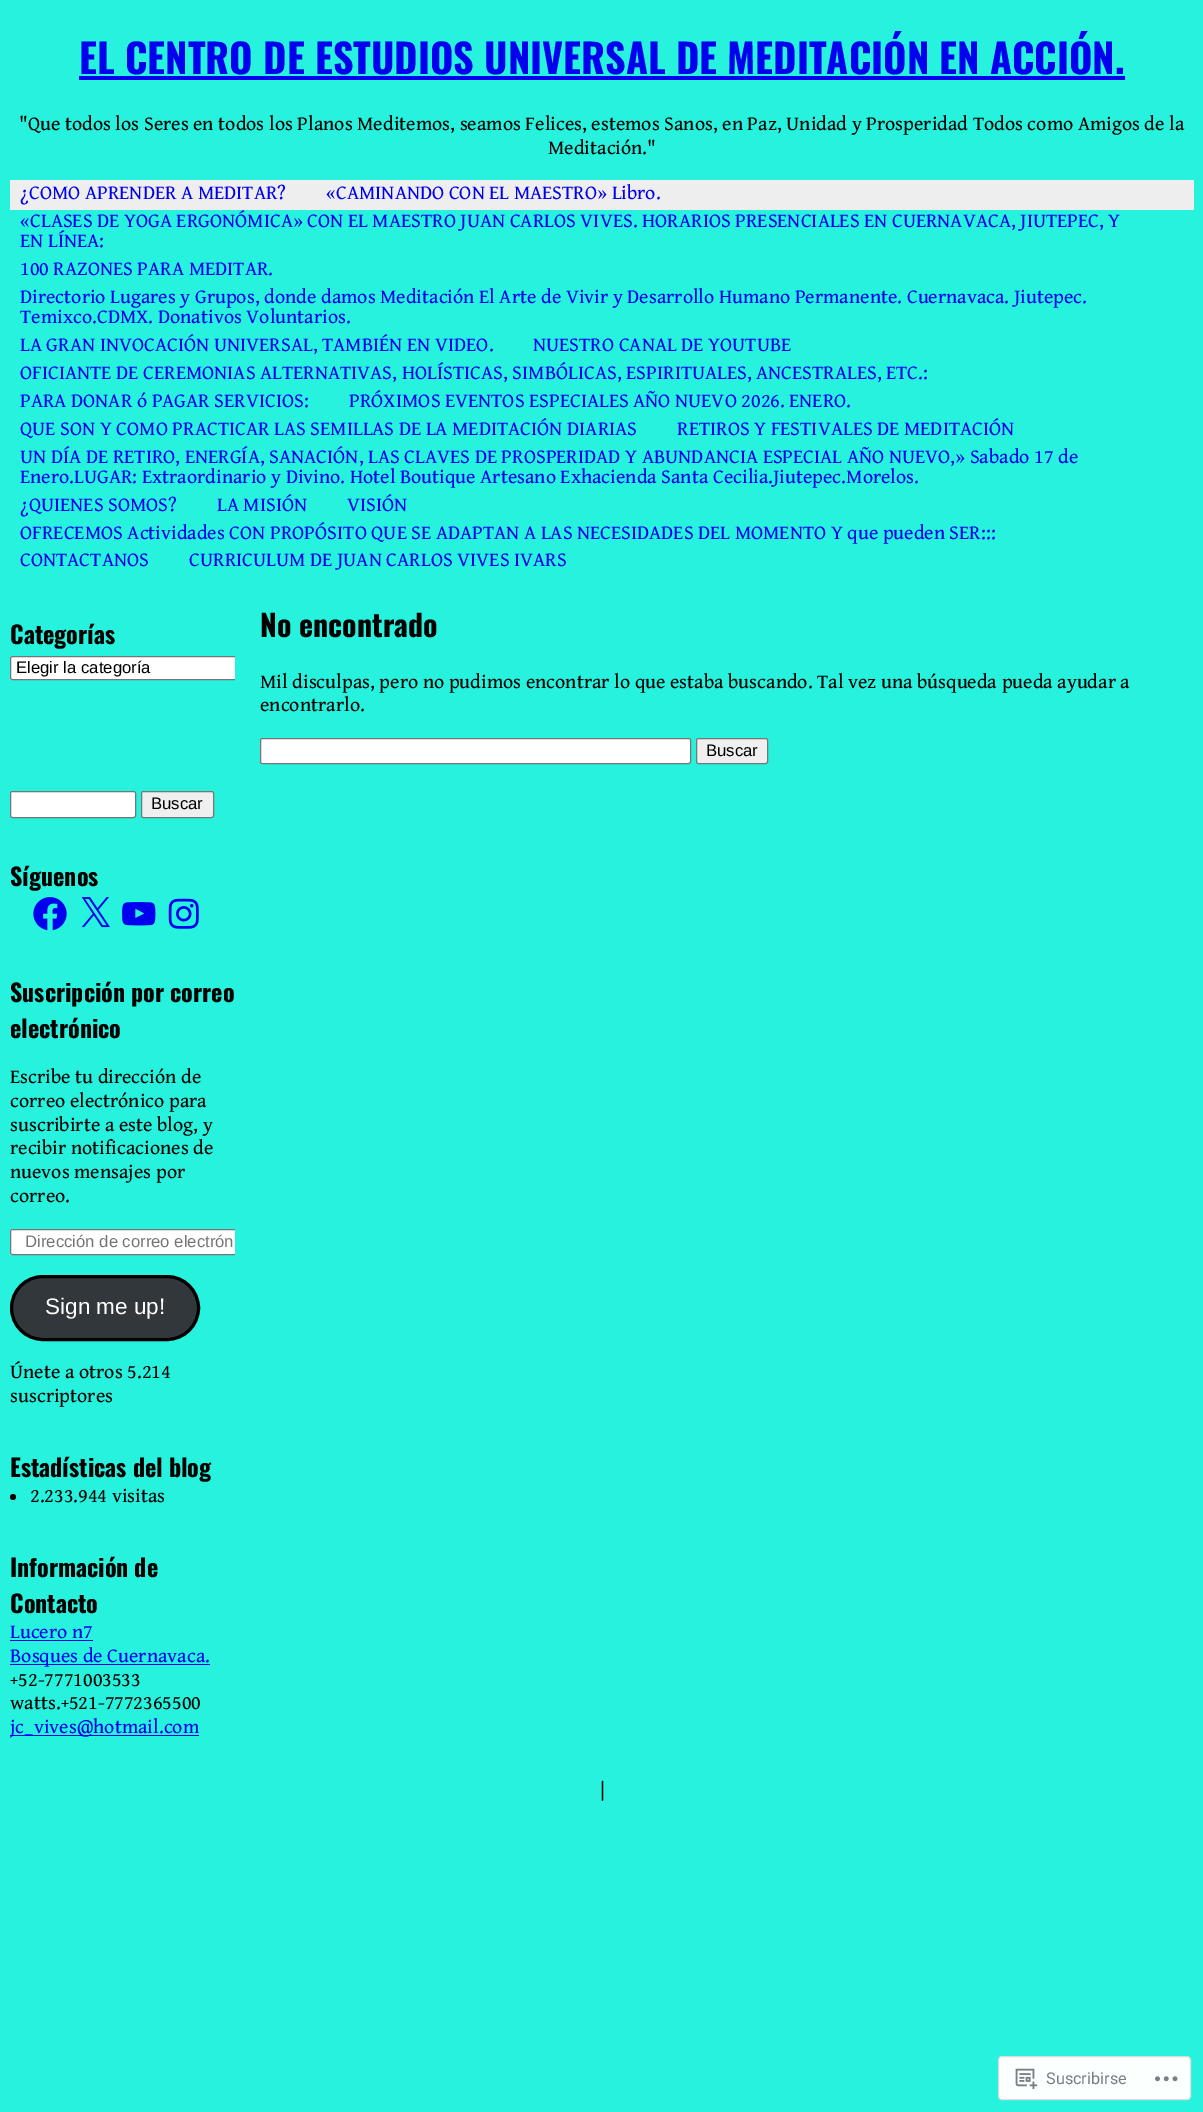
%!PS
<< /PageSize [1203 2112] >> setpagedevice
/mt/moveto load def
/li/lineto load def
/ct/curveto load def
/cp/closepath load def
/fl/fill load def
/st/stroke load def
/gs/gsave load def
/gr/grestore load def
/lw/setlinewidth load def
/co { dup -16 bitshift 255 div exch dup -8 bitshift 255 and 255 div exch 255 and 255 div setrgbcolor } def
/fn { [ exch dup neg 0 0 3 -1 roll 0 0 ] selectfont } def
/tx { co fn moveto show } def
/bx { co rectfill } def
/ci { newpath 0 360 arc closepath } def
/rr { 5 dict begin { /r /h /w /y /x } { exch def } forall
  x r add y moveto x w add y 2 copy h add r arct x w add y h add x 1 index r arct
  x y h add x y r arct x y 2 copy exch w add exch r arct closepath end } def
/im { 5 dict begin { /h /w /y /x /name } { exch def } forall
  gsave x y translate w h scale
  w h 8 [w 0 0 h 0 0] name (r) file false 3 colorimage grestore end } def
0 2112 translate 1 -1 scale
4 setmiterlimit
0 0 1203 2112 16#26F2DD bx
79 76 1046 4 16#0000EE bx
10 180 1184 30 16#EEEEEE bx
16#FFFFFF co
12.5 656 mt 235 656 li 235 680 li 12.5 680 li 11 680 10 679 10 677.5 ct 10 658.5 li 10 657 11 656 12.5 656 ct cp fl
10.5 791.5 125 26 2 rr gs fl gr
16#767676 co
st
16#EFEFEF co
141.5 791.5 72 26 2 rr gs fl gr
16#767676 co
st
(media/1.raw) 33 897 34 34 im
(media/2.raw) 81 897 29 31 im
(media/3.raw) 122 902 34 24 im
(media/4.raw) 168 898 31 31 im
16#FFFFFF co
260.5 738.5 430 25 2 rr gs fl gr
16#767676 co
st
16#EFEFEF co
696.5 738.5 71 25 2 rr gs fl gr
16#767676 co
st
16#FFFFFF co
12.5 1229 mt 235 1229 li 235 1255 li 12.5 1255 li 11 1255 10 1254 10 1252.5 ct 10 1231.5 li 10 1230 11 1229 12.5 1229 ct cp fl
gs
10 974 225 806 rectclip
16#767676 co
10.5 1229.5 243 25 2 rr st
gr
16#32373C co
11.5 1276.5 187 63 31.5 rr gs fl gr
16#000000 co
3 lw
st
13 1497 3 ci fl
10 1640 83 1 16#0000EE bx
10 1664 200 1 16#0000EE bx
10 1735 189 1 16#0000EE bx
16#FBFFFE co
998.5 2056.5 192 43 3.5 rr gs fl gr
16#D8DCDE co
1 lw
st
(media/5.raw) 1015 2068 23 22 im
(media/6.raw) 1155 2076 23 6 im
(EL CENTRO DE ESTUDIOS UNIVERSAL DE MEDITACIÓN EN ACCIÓN.) 79 74 /Oswald-Bold 40 16#0000EE tx
("Que todos los Seres en todos los Planos Meditemos, seamos Felices, estemos Sanos, en Paz, Unidad y Prosperidad Todos como Amigos de la) 19 130 /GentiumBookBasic-Regular 20 16#000000 tx
(Meditación.") 548 154 /GentiumBookBasic-Regular 20 16#000000 tx
(¿COMO APRENDER A MEDITAR?) 20 199 /GentiumBookBasic-Regular 20 16#0000EE tx
(«CAMINANDO CON EL MAESTRO» Libro.) 326 199 /GentiumBookBasic-Regular 20 16#0000EE tx
(«CLASES DE YOGA ERGONÓMICA» CON EL MAESTRO JUAN CARLOS VIVES. HORARIOS PRESENCIALES EN CUERNAVACA, JIUTEPEC, Y) 20 227 /GentiumBookBasic-Regular 20 16#0000EE tx
(EN LÍNEA:) 20 247 /GentiumBookBasic-Regular 20 16#0000EE tx
(100 RAZONES PARA MEDITAR.) 20 275 /GentiumBookBasic-Regular 20 16#0000EE tx
(Directorio Lugares y Grupos, donde damos Meditación El Arte de Vivir y Desarrollo Humano Permanente. Cuernavaca. Jiutepec.) 20 303 /GentiumBookBasic-Regular 20 16#0000EE tx
(Temixco.CDMX. Donativos Voluntarios.) 20 323 /GentiumBookBasic-Regular 20 16#0000EE tx
(LA GRAN INVOCACIÓN UNIVERSAL, TAMBIÉN EN VIDEO.) 20 351 /GentiumBookBasic-Regular 20 16#0000EE tx
(NUESTRO CANAL DE YOUTUBE) 533 351 /GentiumBookBasic-Regular 20 16#0000EE tx
(OFICIANTE DE CEREMONIAS ALTERNATIVAS, HOLÍSTICAS, SIMBÓLICAS, ESPIRITUALES, ANCESTRALES, ETC.:) 20 379 /GentiumBookBasic-Regular 20 16#0000EE tx
(PARA DONAR ó PAGAR SERVICIOS:) 20 407 /GentiumBookBasic-Regular 20 16#0000EE tx
(PRÓXIMOS EVENTOS ESPECIALES AÑO NUEVO 2026. ENERO.) 349 407 /GentiumBookBasic-Regular 20 16#0000EE tx
(QUE SON Y COMO PRACTICAR LAS SEMILLAS DE LA MEDITACIÓN DIARIAS) 20 435 /GentiumBookBasic-Regular 20 16#0000EE tx
(RETIROS Y FESTIVALES DE MEDITACIÓN) 677 435 /GentiumBookBasic-Regular 20 16#0000EE tx
(UN DÍA DE RETIRO, ENERGÍA, SANACIÓN, LAS CLAVES DE PROSPERIDAD Y ABUNDANCIA ESPECIAL AÑO NUEVO,» Sabado 17 de) 20 463 /GentiumBookBasic-Regular 20 16#0000EE tx
(Enero.LUGAR: Extraordinario y Divino. Hotel Boutique Artesano Exhacienda Santa Cecilia.Jiutepec.Morelos.) 20 483 /GentiumBookBasic-Regular 20 16#0000EE tx
(¿QUIENES SOMOS?) 20 511 /GentiumBookBasic-Regular 20 16#0000EE tx
(LA MISIÓN) 217 511 /GentiumBookBasic-Regular 20 16#0000EE tx
(VISIÓN) 347 511 /GentiumBookBasic-Regular 20 16#0000EE tx
(OFRECEMOS Actividades CON PROPÓSITO QUE SE ADAPTAN A LAS NECESIDADES DEL MOMENTO Y que pueden SER:::) 20 539 /GentiumBookBasic-Regular 20 16#0000EE tx
(CONTACTANOS) 20 566 /GentiumBookBasic-Regular 20 16#0000EE tx
(CURRICULUM DE JUAN CARLOS VIVES IVARS) 189 566 /GentiumBookBasic-Regular 20 16#0000EE tx
(Categorías) 10 644 /Oswald-Bold 24 16#000000 tx
(Buscar) 151 809 /LiberationSans-Regular 16.7 16#000000 tx
(Síguenos) 10 886 /Oswald-Bold 24 16#000000 tx
(No encontrado) 260 637 /Oswald-Bold 30 16#000000 tx
(Mil disculpas, pero no pudimos encontrar lo que estaba buscando. Tal vez una búsqueda pueda ayudar a) 260 688 /GentiumBookBasic-Regular 20 16#000000 tx
gs
10 615 225 359 rectclip
16#767676 co
10.5 656.5 663 23 2 rr st
gr
(Elegir la categoría) 16 673 /LiberationSans-Regular 16.7 16#000000 tx
(encontrarlo.) 260 711 /GentiumBookBasic-Regular 20 16#000000 tx
(Buscar) 706 756 /LiberationSans-Regular 16.7 16#000000 tx
(Suscripción por correo) 10 1002 /Oswald-Bold 24 16#000000 tx
(electrónico) 10 1038 /Oswald-Bold 24 16#000000 tx
(Escribe tu dirección de) 10 1083 /GentiumBookBasic-Regular 20 16#000000 tx
(correo electrónico para) 10 1107 /GentiumBookBasic-Regular 20 16#000000 tx
(suscribirte a este blog, y) 10 1131 /GentiumBookBasic-Regular 20 16#000000 tx
(recibir notificaciones de) 10 1154 /GentiumBookBasic-Regular 20 16#000000 tx
(nuevos mensajes por) 10 1178 /GentiumBookBasic-Regular 20 16#000000 tx
(correo.) 10 1202 /GentiumBookBasic-Regular 20 16#000000 tx
(Dirección de correo electrón) 25 1247 /LiberationSans-Regular 16.7 16#757575 tx
(Sign me up!) 45 1314 /LiberationSans-Regular 22.5 16#FFFFFF tx
(Únete a otros 5.214) 10 1378 /GentiumBookBasic-Regular 20 16#000000 tx
(suscriptores) 10 1402 /GentiumBookBasic-Regular 20 16#000000 tx
(Estadísticas del blog) 10 1477 /Oswald-Bold 24 16#000000 tx
(2.233.944 visitas) 30 1502 /GentiumBookBasic-Regular 20 16#000000 tx
(Información de) 10 1577 /Oswald-Bold 24 16#000000 tx
(Contacto) 10 1613 /Oswald-Bold 24 16#000000 tx
(Lucero n7) 10 1638 /GentiumBookBasic-Regular 20 16#0000EE tx
(Bosques de Cuernavaca.) 10 1662 /GentiumBookBasic-Regular 20 16#0000EE tx
(+52-7771003533) 10 1686 /GentiumBookBasic-Regular 20 16#000000 tx
(watts.+521-7772365500) 10 1709 /GentiumBookBasic-Regular 20 16#000000 tx
gs
10 974 225 806 rectclip
(jc_vives@hotmail.com) 10 1733 /GentiumBookBasic-Regular 20 16#0000EE tx
gr
(|) 600 1797 /GentiumBookBasic-Regular 20 16#000000 tx
(Suscribirse) 1046 2084 /Roboto-Regular 16.25 16#767E84 tx
showpage
